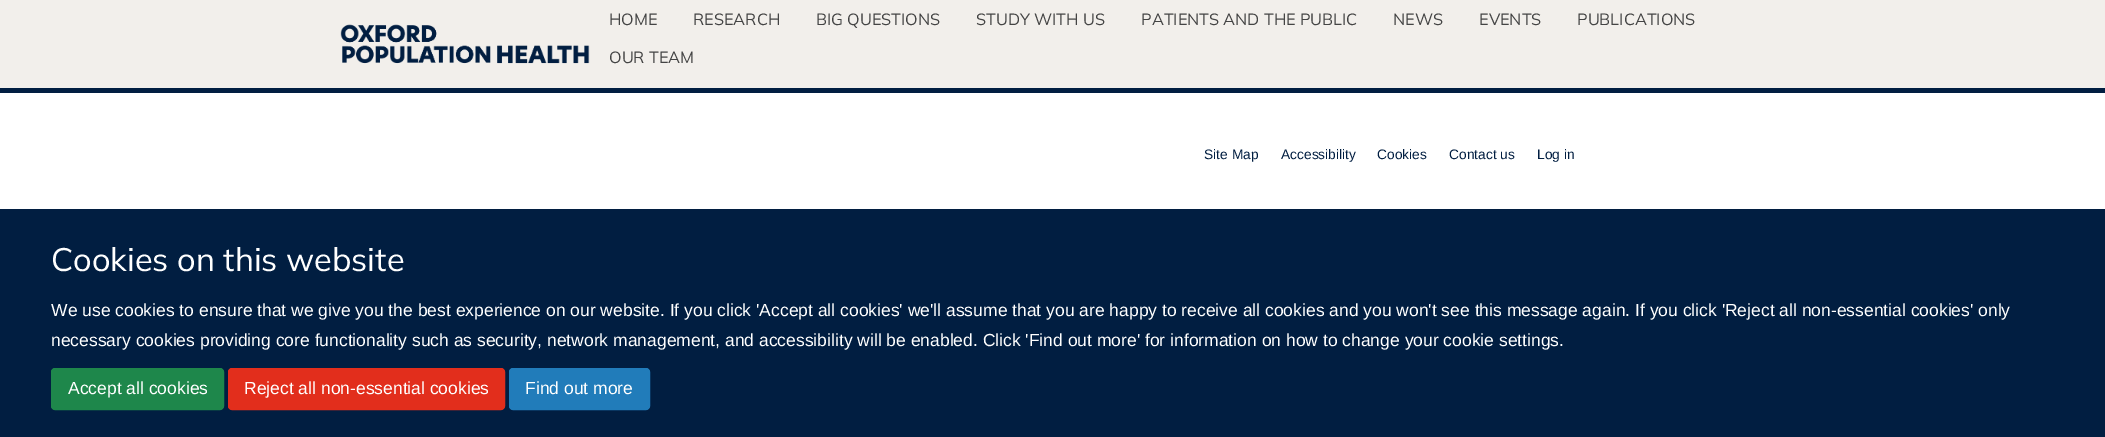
%!PS
<< /PageSize [2105 437] >> setpagedevice
/fl/fill load def
/st/stroke load def
/gs/gsave load def
/gr/grestore load def
/co { dup -16 bitshift 255 div exch dup -8 bitshift 255 and 255 div exch 255 and 255 div setrgbcolor } def
/fn { [ exch dup neg 0 0 3 -1 roll 0 0 ] selectfont } def
/tx { co fn moveto show } def
/bx { co rectfill } def
/rr { 5 dict begin { /r /h /w /y /x } { exch def } forall
  x r add y moveto x w add y 2 copy h add r arct x w add y h add x 1 index r arct
  x y h add x y r arct x y 2 copy exch w add exch r arct closepath end } def
/im { 5 dict begin { /h /w /y /x /name } { exch def } forall
  gsave x y translate w h scale
  w h 8 [w 0 0 h 0 0] name (r) file false 3 colorimage grestore end } def
0 437 translate 1 -1 scale
4 setmiterlimit
0 0 2105 437 16#FFFFFF bx
0 0 2105 88 16#F2EFEB bx
0 88 2105 5 16#011E41 bx
(media/1.raw) 340 24 250 40 im
0 209 2105 228 16#011E41 bx
16#1E874B co
51.5 368.5 172 41 3.5 rr gs fl gr
st
16#E22E1C co
228.5 368.5 276 41 3.5 rr gs fl gr
st
16#217CBA co
509.5 368.5 140 41 3.5 rr gs fl gr
st
(HOME) 609 25 /Mulish-Regular 16.25 16#444444 tx
(RESEARCH) 693 25 /Mulish-Regular 16.25 16#444444 tx
(BIG QUESTIONS) 816 25 /Mulish-Regular 16.25 16#444444 tx
(STUDY WITH US) 976 25 /Mulish-Regular 16.25 16#444444 tx
(PATIENTS AND THE PUBLIC) 1141 25 /Mulish-Regular 16.25 16#444444 tx
(NEWS) 1393 25 /Mulish-Regular 16.25 16#444444 tx
(EVENTS) 1479 25 /Mulish-Regular 16.25 16#444444 tx
(PUBLICATIONS) 1577 25 /Mulish-Regular 16.25 16#444444 tx
(OUR TEAM) 609 63 /Mulish-Regular 16.25 16#444444 tx
(Site Map) 1204 159 /LiberationSans-Regular 13.75 16#011E41 tx
(Accessibility) 1281 159 /LiberationSans-Regular 13.75 16#011E41 tx
(Cookies) 1377 159 /LiberationSans-Regular 13.75 16#011E41 tx
(Contact us) 1449 159 /LiberationSans-Regular 13.75 16#011E41 tx
(Log in) 1537 159 /LiberationSans-Regular 13.75 16#011E41 tx
(Cookies on this website) 51 271 /Mulish-Regular 32.5 16#FFFFFF tx
(We use cookies to ensure that we give you the best experience on our website. If you click 'Accept all cookies' we'll assume that you are happy to receive all cookies and you won't see this message again. If you click 'Reject all non-essential cookies' only) 51 316 /LiberationSans-Regular 17.5 16#FFFFFF tx
(necessary cookies providing core functionality such as security, network management, and accessibility will be enabled. Click 'Find out more' for information on how to change your cookie settings.) 51 346 /LiberationSans-Regular 17.5 16#FFFFFF tx
(Accept all cookies) 68 394 /LiberationSans-Regular 17.5 16#FFFFFF tx
(Reject all non-essential cookies) 244 394 /LiberationSans-Regular 17.5 16#FFFFFF tx
(Find out more) 525 394 /LiberationSans-Regular 17.5 16#FFFFFF tx
showpage
